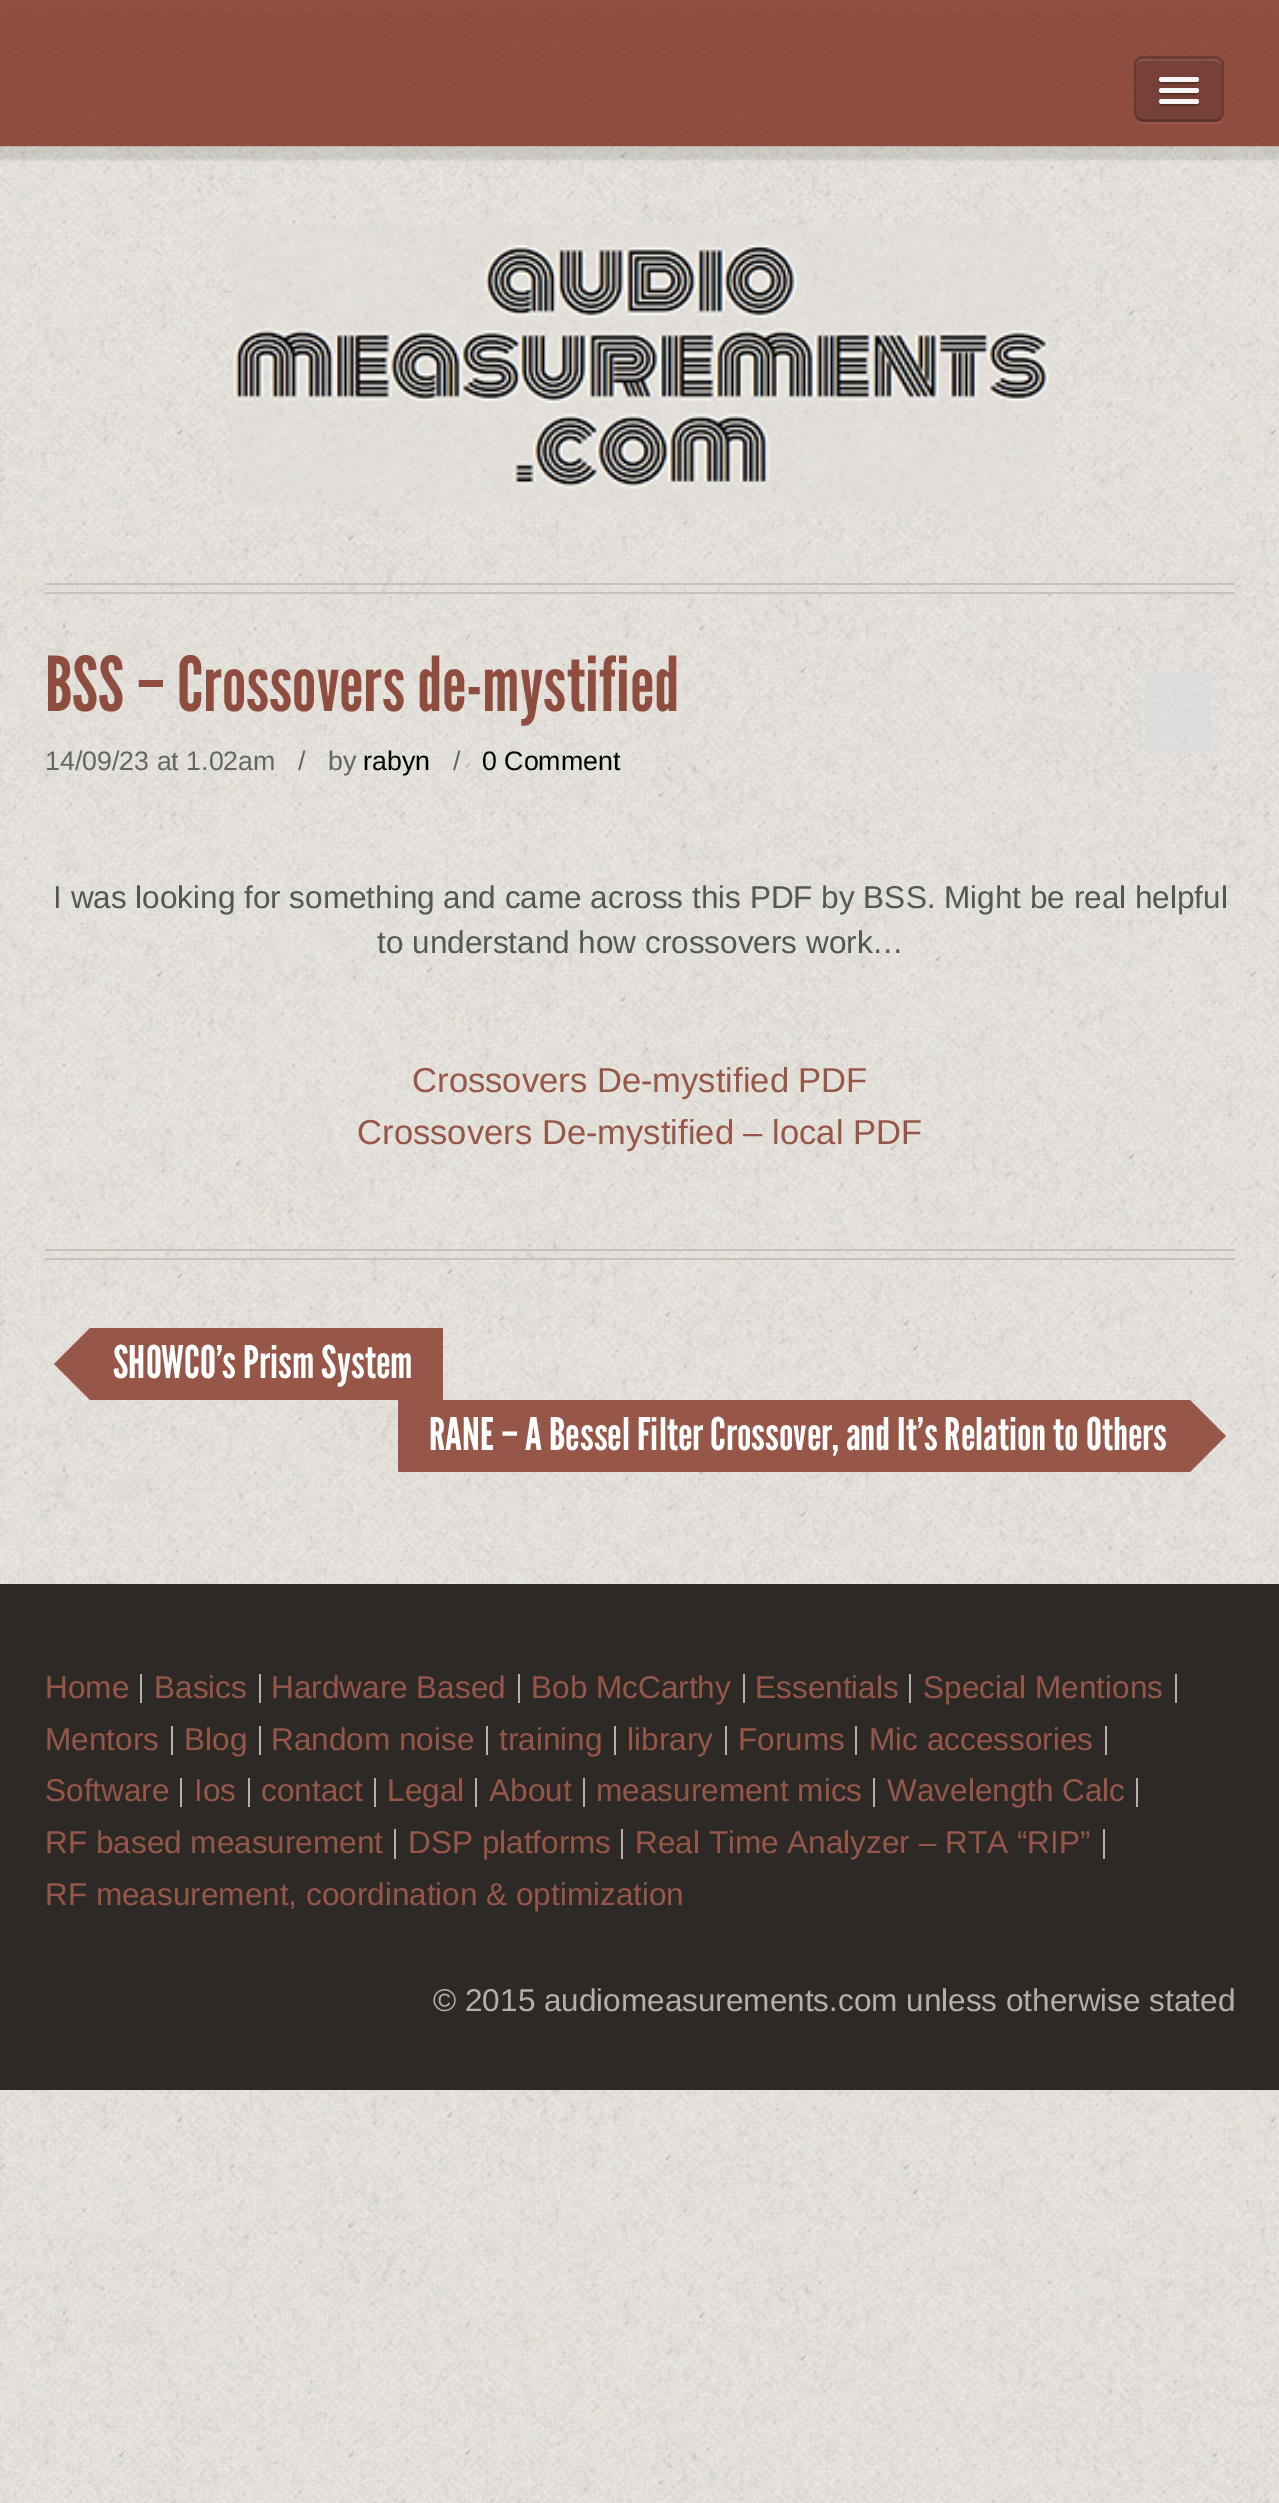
%!PS
<< /PageSize [1279 2503] /PageUsesTransparency true >> setpagedevice
/mt/moveto load def
/li/lineto load def
/ct/curveto load def
/cp/closepath load def
/fl/fill load def
/st/stroke load def
/lw/setlinewidth load def
/co { dup -16 bitshift 255 div exch dup -8 bitshift 255 and 255 div exch 255 and 255 div setrgbcolor } def
/fn { [ exch dup neg 0 0 3 -1 roll 0 0 ] selectfont } def
/tx { co fn moveto show } def
/bx { co rectfill } def
/al { dup .setfillconstantalpha .setstrokeconstantalpha } def
/rr { 5 dict begin { /r /h /w /y /x } { exch def } forall
  x r add y moveto x w add y 2 copy h add r arct x w add y h add x 1 index r arct
  x y h add x y r arct x y 2 copy exch w add exch r arct closepath end } def
/sh { 12 dict begin { /a /b /q /h /w /y /x } { exch def } forall gsave /was 0 def
  9 -2 -9 { dup b mul 4 div /e exch def 1 sub .425 mul 2.718 exch exp 1 add a .99 .min exch div /now exch def
    1 1 now sub 1 was sub div sub al /was now def
    w h .min e 2 mul add 0 gt { x e sub y e sub w e 2 mul add h e 2 mul add
      q e add b .6 mul add w h .min 2 div e add .min 0 .max rr fill } if } for grestore end } def
/im { 5 dict begin { /h /w /y /x /name } { exch def } forall
  gsave x y translate w h scale
  w h 8 [w 0 0 h 0 0] name (r) file false 3 colorimage grestore end } def
0 .pushpdf14devicefilter
0 2503 translate 1 -1 scale
4 setmiterlimit
0 0 1279 2503 16#FFFFFF bx
(media/1.raw) 0 146 1279 2357 im
16#000000 co
-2 9 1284 151 0 1 .1 sh
0 0 1279 13 16#904F41 bx
(media/2.raw) 0 13 1279 134 im
0.07 al
16#FFFFFF co
1134 112 mt 1134 126 1144 124 1155 124 ct 1203 124 li 1214 124 1224 126 1224 112 ct 1224 117 1220 122 1215 122 ct 1143 122 li 1138 122 1134 117 1134 112 ct cp fl
1 al
16#774137 co
1134 56 90 66 9 rr fl
16#85544B co
1143 61 mt 1215 61 li 1219 61 1222 64 1222 68 ct 1222 56 1212 59 1203 59 ct 1155 59 li 1146 59 1136 56 1136 68 ct 1136 64 1139 61 1143 61 ct cp fl
16#593129 co
2.2 lw
1220.5 118 mt 1219 119.5 1217 120.5 1215 120.5 ct 1143 120.5 li 1141 120.5 1139 119.5 1137.5 118 ct st
0.1 al
16#000000 co
1137.5 118 mt 1136 116.5 1135 114.5 1135 112.5 ct 1135 65 li 1135 63 1136 61 1137.5 59.5 ct 1139 58 1141 57.5 1143 57.5 ct 1215 57.5 li 1217 57.5 1219 58 1220.5 59.5 ct 1222 61 1223 63 1223 65 ct 1223 112.5 li 1223 114.5 1222 116.5 1220.5 118 ct st
1 al
16#593129 co
1159 80 mt 1157 85 1167 84 1167 84 ct 1191 84 li 1191 84 1201 85 1199 80 ct 1197 82 1161 82 1159 80 ct cp fl
16#F5F5F5 co
1159 77 40 5 2.5 rr fl
16#593129 co
1159 91 mt 1157 96 1166 95 1167 95 ct 1191 95 li 1192 95 1201 96 1199 91 ct 1197 92 li 1161 92 li cp fl
16#F5F5F5 co
1159 88 40 5 2.5 rr fl
16#593129 co
1159 103 mt 1157 107 1166 106 1167 106 ct 1191 106 li 1192 106 1201 107 1199 103 ct 1197 103 li 1161 103 li cp fl
16#F5F5F5 co
1159 99 40 5 2.5 rr fl
(media/3.raw) 231 225 820 284 im
45 583 1190 2 16#C5C2BC bx
45 592 1190 2 16#C5C2BC bx
45 1258 1190 2 16#C5C2BC bx
(media/4.raw) 1145 672 66 80 im
45 1249 1190 2 16#C5C2BC bx
90 1328 353 72 16#975748 bx
90 1328 mt 90 1400 li 54 1364 li cp fl
398 1400 792 72 16#975748 bx
1190 1472 mt 1190 1400 li 1226 1436 li cp fl
0 1584 1279 506 16#2C2927 bx
140 1674 2 29 16#B4B1AA bx
259 1674 2 29 16#B4B1AA bx
518 1674 2 29 16#B4B1AA bx
743 1674 2 29 16#B4B1AA bx
909 1674 2 29 16#B4B1AA bx
1175 1674 2 29 16#B4B1AA bx
171 1726 2 29 16#B4B1AA bx
259 1726 2 29 16#B4B1AA bx
486 1726 2 29 16#B4B1AA bx
614 1726 2 29 16#B4B1AA bx
725 1726 2 29 16#B4B1AA bx
855 1726 2 29 16#B4B1AA bx
1105 1726 2 29 16#B4B1AA bx
180 1778 2 29 16#B4B1AA bx
248 1778 2 29 16#B4B1AA bx
374 1778 2 29 16#B4B1AA bx
475 1778 2 29 16#B4B1AA bx
583 1778 2 29 16#B4B1AA bx
873 1778 2 29 16#B4B1AA bx
1136 1778 2 29 16#B4B1AA bx
394 1829 2 30 16#B4B1AA bx
621 1829 2 30 16#B4B1AA bx
1103 1829 2 30 16#B4B1AA bx
(BSS – Crossovers de-mystified) 45 711 /LeagueGothic-Regular 75.5 16#8F4D3F tx
(14/09/23 at 1.02am) 45 770 /LiberationSans-Regular 26.75 16#656462 tx
(/) 298 770 /LiberationSans-Regular 26.75 16#656462 tx
(by) 328 770 /LiberationSans-Regular 26.75 16#656462 tx
(rabyn) 363 770 /LiberationSans-Regular 26.75 16#000000 tx
(/) 453 770 /LiberationSans-Regular 26.75 16#656462 tx
(0 Comment) 482 770 /LiberationSans-Regular 26.75 16#000000 tx
(I was looking for something and came across this PDF by BSS. Might be real helpful) 53 908 /LiberationSans-Regular 31.5 16#555555 tx
(to understand how crossovers work…) 377 953 /LiberationSans-Regular 31.5 16#555555 tx
(Crossovers De-mystified PDF) 412 1092 /LiberationSans-Regular 34.6 16#975748 tx
(Crossovers De-mystified – local PDF) 357 1144 /LiberationSans-Regular 34.6 16#975748 tx
(SHOWCO’s Prism System) 113 1378 /LeagueGothic-Regular 45 16#FFFFFF tx
(RANE – A Bessel Filter Crossover, and It’s Relation to Others) 429 1450 /LeagueGothic-Regular 45 16#FFFFFF tx
(Home) 45 1698 /LiberationSans-Regular 31.5 16#975748 tx
(Basics) 154 1698 /LiberationSans-Regular 31.5 16#975748 tx
(Hardware Based) 271 1698 /LiberationSans-Regular 31.5 16#975748 tx
(Bob McCarthy) 531 1698 /LiberationSans-Regular 31.5 16#975748 tx
(Essentials) 755 1698 /LiberationSans-Regular 31.5 16#975748 tx
(Special Mentions) 923 1698 /LiberationSans-Regular 31.5 16#975748 tx
(Mentors) 45 1750 /LiberationSans-Regular 31.5 16#975748 tx
(Blog) 184 1750 /LiberationSans-Regular 31.5 16#975748 tx
(Random noise) 271 1750 /LiberationSans-Regular 31.5 16#975748 tx
(training) 499 1750 /LiberationSans-Regular 31.5 16#975748 tx
(library) 627 1750 /LiberationSans-Regular 31.5 16#975748 tx
(Forums) 738 1750 /LiberationSans-Regular 31.5 16#975748 tx
(Mic accessories) 869 1750 /LiberationSans-Regular 31.5 16#975748 tx
(Software) 45 1801 /LiberationSans-Regular 31.5 16#975748 tx
(Ios) 194 1801 /LiberationSans-Regular 31.5 16#975748 tx
(contact) 261 1801 /LiberationSans-Regular 31.5 16#975748 tx
(Legal) 387 1801 /LiberationSans-Regular 31.5 16#975748 tx
(About) 489 1801 /LiberationSans-Regular 31.5 16#975748 tx
(measurement mics) 596 1801 /LiberationSans-Regular 31.5 16#975748 tx
(Wavelength Calc) 887 1801 /LiberationSans-Regular 31.5 16#975748 tx
(RF based measurement) 45 1853 /LiberationSans-Regular 31.5 16#975748 tx
(DSP platforms) 408 1853 /LiberationSans-Regular 31.5 16#975748 tx
(Real Time Analyzer – RTA “RIP”) 635 1853 /LiberationSans-Regular 31.5 16#975748 tx
(RF measurement, coordination & optimization) 45 1905 /LiberationSans-Regular 31.5 16#975748 tx
(© 2015 audiomeasurements.com unless otherwise stated) 433 2011 /LiberationSans-Regular 31.5 16#B4B1AA tx
.poppdf14devicefilter showpage
